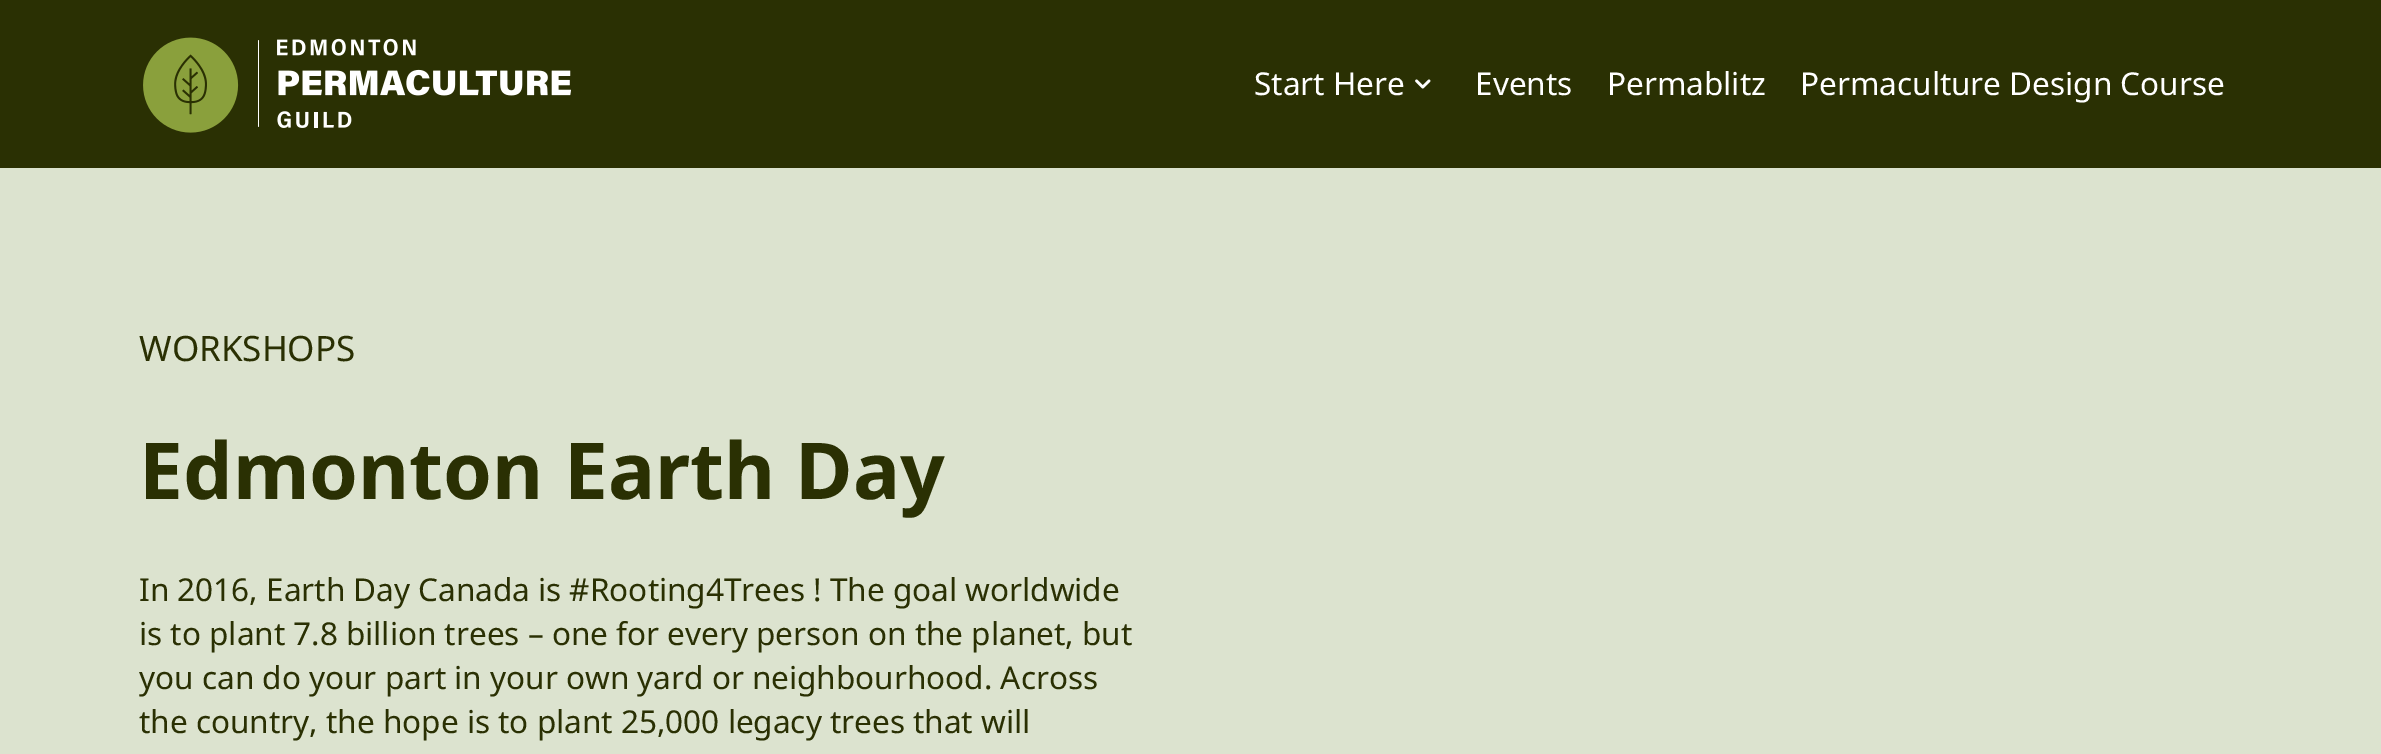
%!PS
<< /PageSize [2381 754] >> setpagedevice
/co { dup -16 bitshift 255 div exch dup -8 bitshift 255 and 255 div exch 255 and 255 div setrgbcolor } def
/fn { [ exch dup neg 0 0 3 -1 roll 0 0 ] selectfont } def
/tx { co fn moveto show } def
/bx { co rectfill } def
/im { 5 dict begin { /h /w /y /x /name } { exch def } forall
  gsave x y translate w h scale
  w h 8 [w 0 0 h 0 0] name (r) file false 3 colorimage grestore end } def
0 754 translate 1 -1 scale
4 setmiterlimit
0 0 2381 754 16#DCE3CF bx
0 0 2381 168 16#2A3003 bx
(media/1.raw) 143 37 428 96 im
(media/2.raw) 1415 79 16 10 im
(Start Here) 1254 95 /NotoSans-Regular 31.5 16#FFFFFF tx
(Events) 1475 95 /NotoSans-Regular 31.5 16#FFFFFF tx
(Permablitz) 1607 95 /NotoSans-Regular 31.5 16#FFFFFF tx
(Permaculture Design Course) 1800 95 /NotoSans-Regular 31.5 16#FFFFFF tx
(WORKSHOPS) 139 361 /NotoSans-Regular 35 16#2A3003 tx
(Edmonton Earth Day) 139 499 /NotoSans-Bold 78.5 16#2A3003 tx
(In 2016, Earth Day Canada is #Rooting4Trees ! The goal worldwide) 139 601 /NotoSans-Regular 31.5 16#2A3003 tx
(is to plant 7.8 billion trees – one for every person on the planet, but) 139 645 /NotoSans-Regular 31.5 16#2A3003 tx
(you can do your part in your own yard or neighbourhood. Across) 139 689 /NotoSans-Regular 31.5 16#2A3003 tx
(the country, the hope is to plant 25,000 legacy trees that will) 139 733 /NotoSans-Regular 31.5 16#2A3003 tx
showpage
